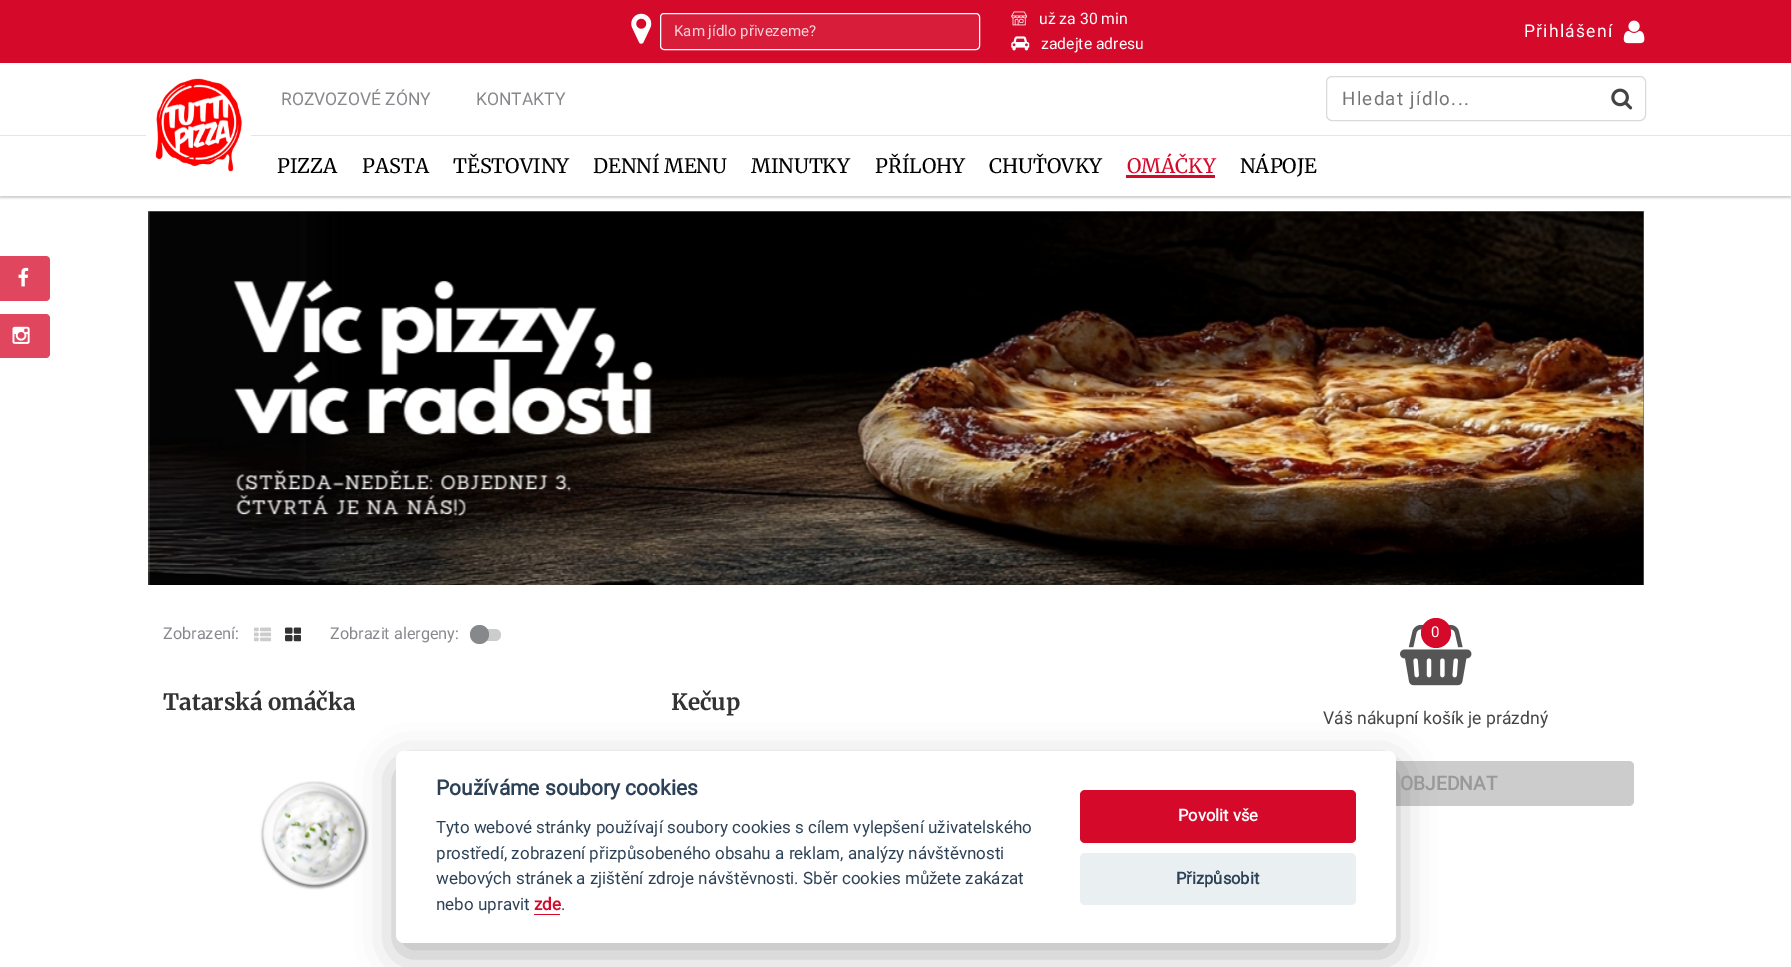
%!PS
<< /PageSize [1791 967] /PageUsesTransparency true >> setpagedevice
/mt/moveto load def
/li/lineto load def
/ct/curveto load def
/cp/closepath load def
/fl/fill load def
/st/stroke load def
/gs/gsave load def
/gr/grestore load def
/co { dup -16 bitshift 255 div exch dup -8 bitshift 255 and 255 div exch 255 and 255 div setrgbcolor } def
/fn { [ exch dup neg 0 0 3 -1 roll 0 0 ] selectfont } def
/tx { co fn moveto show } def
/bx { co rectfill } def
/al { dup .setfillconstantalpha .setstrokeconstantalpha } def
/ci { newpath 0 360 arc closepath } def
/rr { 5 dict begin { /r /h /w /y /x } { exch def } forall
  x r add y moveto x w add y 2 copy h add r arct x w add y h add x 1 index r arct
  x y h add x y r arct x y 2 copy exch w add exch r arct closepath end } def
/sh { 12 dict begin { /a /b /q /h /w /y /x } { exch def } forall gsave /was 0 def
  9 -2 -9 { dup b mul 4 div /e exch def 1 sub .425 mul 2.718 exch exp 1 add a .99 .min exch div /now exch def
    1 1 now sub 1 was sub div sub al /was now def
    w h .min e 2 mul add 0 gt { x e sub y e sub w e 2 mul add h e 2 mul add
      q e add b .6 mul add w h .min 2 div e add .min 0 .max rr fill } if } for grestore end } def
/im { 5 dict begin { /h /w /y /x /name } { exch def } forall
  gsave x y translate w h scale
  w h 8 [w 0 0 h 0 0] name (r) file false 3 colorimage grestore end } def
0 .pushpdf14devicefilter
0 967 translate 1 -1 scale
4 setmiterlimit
0 0 1791 967 16#FFFFFF bx
gs
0 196 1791 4 rectclip
16#CCCCCC co
0 1 1791 197 0 1 1 sh
gr
0 0 1791 63 16#D5092A bx
(media/1.raw) 631 13 21 31 im
16#D81D3B co
660 13 320 37 4 rr fl
16#C81B37 co
664 15 mt 976 15 li 978 15 979 16 979 18 ct 979 16 li 979 15 978 14 976 14 ct 664 14 li 662 14 661 15 661 16 ct 661 18 li 661 16 662 15 664 15 ct cp fl
16#FFFFFF co
660.5 13.5 319 36 3.5 rr st
(media/2.raw) 1011 11 16 15 im
(media/3.raw) 1011 36 19 15 im
(media/4.raw) 1623 20 22 24 im
0 135 1791 1 16#E6E6E6 bx
146 135 105 1 16#FFFFFF bx
(media/5.raw) 155 78 88 94 im
16#DADADA co
1326.5 76.5 319 44 5.5 rr st
(media/6.raw) 1611 88 22 22 im
1126 175 89 3 16#D5092A bx
16#E0475F co
0 256 mt 46 256 li 48 256 50 258 50 260 ct 50 297 li 50 299 48 301 46 301 ct 0 301 li cp fl
(media/7.raw) 18 267 11 20 im
0 314 mt 46 314 li 48 314 50 316 50 318 ct 50 354 li 50 356 48 358 46 358 ct 0 358 li cp fl
(media/8.raw) 12 326 18 18 im
(media/9.raw) 148 211 2 374 im
(media/10.raw) 148 211 1496 374 im
(media/11.raw) 1643 211 1 374 im
(media/12.raw) 254 627 17 15 im
(media/13.raw) 285 627 16 15 im
16#CCCCCC co
476 629 25 12 6 rr fl
16#87888C co
479.5 634.5 9.5 ci fl
(media/14.raw) 260 781 109 109 im
(media/15.raw) 1400 624 72 62 im
16#D5092A co
1436 633 15 ci fl
16#CCCCCC co
1238 761 396 45 5 rr fl
16#020203 co
396 764 1000 191 8 19 .28 sh
16#FFFFFF co
396 751 1000 192 8 rr fl
534 914 26 1 16#D5092A bx
1080 790 276 53 5 rr fl
16#EAEFF2 co
1080 853 276 52 5 rr fl
(Kam jídlo přivezeme?) 674 36 /Roboto-Regular 15 16#F7D2D8 tx
(už za 30 min) 1039 24 /Roboto-Regular 15.75 16#FFFFFF tx
(zadejte adresu) 1041 49 /Roboto-Regular 15.75 16#FFFFFF tx
/Roboto-Regular 17.5 fn
1524 37 mt 1.25 0 (Přihlášení) ashow
(ROZVOZOVÉ ZÓNY) 281 105 /Roboto-Regular 17.5 16#87888C tx
(KONTAKTY) 476 105 /Roboto-Regular 17.5 16#87888C tx
/Roboto-Regular 18.75 fn
16#757575 co
1342 105 mt 1.25 0 (Hledat jídlo...) ashow
(PIZZA) 277 173 /Merriweather-Regular 20 16#000000 tx
(PASTA) 362 173 /Merriweather-Regular 20 16#000000 tx
(TĚSTOVINY) 453 173 /Merriweather-Regular 20 16#000000 tx
(DENNÍ MENU) 593 173 /Merriweather-Regular 20 16#000000 tx
(MINUTKY) 751 173 /Merriweather-Regular 20 16#000000 tx
(PŘÍLOHY) 875 173 /Merriweather-Regular 20 16#000000 tx
(CHUŤOVKY) 989 173 /Merriweather-Regular 20 16#000000 tx
(OMÁČKY) 1127 173 /Merriweather-Regular 20 16#D5092A tx
(NÁPOJE) 1240 173 /Merriweather-Regular 20 16#000000 tx
(Zobrazení:) 163 639 /Roboto-Regular 16.25 16#87888C tx
(Zobrazit alergeny:) 330 639 /Roboto-Regular 16.25 16#87888C tx
(Tatarská omáčka) 163 710 /Merriweather-Bold 22.5 16#333333 tx
(Kečup) 671 710 /Merriweather-Bold 22.5 16#333333 tx
(0) 1431 637 /Roboto-Regular 15 16#FFFFFF tx
(Váš nákupní košík je prázdný) 1323 724 /Roboto-Regular 17.5 16#444444 tx
(OBJEDNAT) 1400 790 /Roboto-Bold 19.25 16#999999 tx
(Používáme soubory cookies) 436 795 /Roboto-Bold 21 16#2D4156 tx
(Tyto webové stránky používají soubory cookies s cílem vylepšení uživatelského) 436 833 /Roboto-Regular 17 16#2D4156 tx
(prostředí, zobrazení přizpůsobeného obsahu a reklam, analýzy návštěvnosti) 436 859 /Roboto-Regular 17 16#2D4156 tx
(webových stránek a zjištění zdroje návštěvnosti. Sběr cookies můžete zakázat) 436 884 /Roboto-Regular 17 16#2D4156 tx
(nebo upravit) 436 910 /Roboto-Regular 17 16#2D4156 tx
(zde) 534 910 /Roboto-Bold 17 16#D5092A tx
(.) 561 910 /Roboto-Regular 17 16#2D4156 tx
(Povolit vše) 1178 821 /Roboto-Bold 16.5 16#FFFFFF tx
(Přizpůsobit) 1176 884 /Roboto-Bold 16.5 16#2D4156 tx
.poppdf14devicefilter showpage
